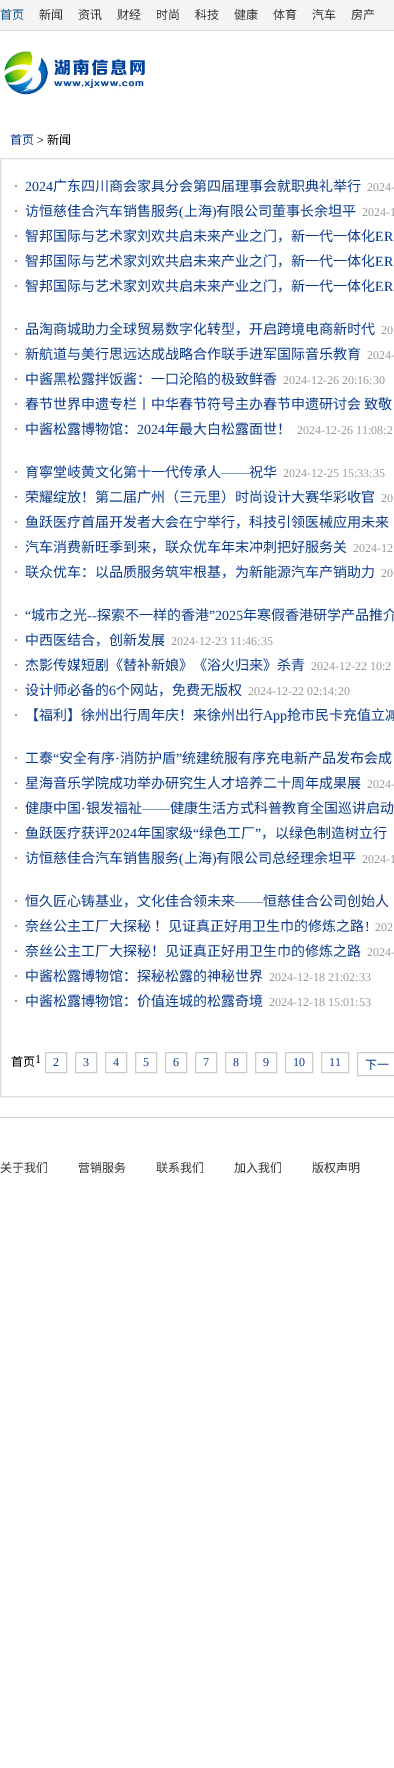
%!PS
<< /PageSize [394 1768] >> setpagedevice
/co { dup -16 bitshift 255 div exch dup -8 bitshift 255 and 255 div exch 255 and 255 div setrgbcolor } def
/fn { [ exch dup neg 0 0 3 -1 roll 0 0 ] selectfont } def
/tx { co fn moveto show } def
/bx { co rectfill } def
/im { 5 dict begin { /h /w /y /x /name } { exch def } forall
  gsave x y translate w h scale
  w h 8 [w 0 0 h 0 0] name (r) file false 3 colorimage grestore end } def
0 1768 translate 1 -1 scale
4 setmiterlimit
0 0 394 1768 16#FFFFFF bx
0 0 394 30 16#F4F4F4 bx
0 30 394 1 16#DDDDDD bx
(media/1.raw) 4 51 144 44 im
.5 158.5 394 938 rectstroke
15 185 2 2 16#999999 bx
15 210 2 2 16#999999 bx
15 235 2 2 16#999999 bx
15 260 2 2 16#999999 bx
15 285 2 2 16#999999 bx
15 328 2 2 16#999999 bx
15 353 2 2 16#999999 bx
15 378 2 2 16#999999 bx
15 403 2 2 16#999999 bx
15 428 2 2 16#999999 bx
15 471 2 2 16#999999 bx
15 496 2 2 16#999999 bx
15 521 2 2 16#999999 bx
15 546 2 2 16#999999 bx
15 571 2 2 16#999999 bx
15 614 2 2 16#999999 bx
15 639 2 2 16#999999 bx
15 664 2 2 16#999999 bx
15 689 2 2 16#999999 bx
15 714 2 2 16#999999 bx
15 757 2 2 16#999999 bx
15 782 2 2 16#999999 bx
15 807 2 2 16#999999 bx
15 832 2 2 16#999999 bx
15 857 2 2 16#999999 bx
15 900 2 2 16#999999 bx
15 925 2 2 16#999999 bx
15 950 2 2 16#999999 bx
15 975 2 2 16#999999 bx
15 1000 2 2 16#999999 bx
16#CCCCCC co
45.5 1052.5 21 20 rectstroke
75.5 1052.5 21 20 rectstroke
105.5 1052.5 21 20 rectstroke
135.5 1052.5 21 20 rectstroke
165.5 1052.5 21 20 rectstroke
195.5 1052.5 21 20 rectstroke
225.5 1052.5 21 20 rectstroke
255.5 1052.5 21 20 rectstroke
285.5 1052.5 27 20 rectstroke
321.5 1052.5 27 20 rectstroke
357.5 1052.5 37 23 rectstroke
0 1117 394 1 16#CCCCCC bx
(首页) 0 19 /NotoSansCJKSC-Regular 12 16#0F5991 tx
(新闻) 39 19 /NotoSansCJKSC-Regular 12 16#333333 tx
(资讯) 78 19 /NotoSansCJKSC-Regular 12 16#333333 tx
(财经) 117 19 /NotoSansCJKSC-Regular 12 16#333333 tx
(时尚) 156 19 /NotoSansCJKSC-Regular 12 16#333333 tx
(科技) 195 19 /NotoSansCJKSC-Regular 12 16#333333 tx
(健康) 234 19 /NotoSansCJKSC-Regular 12 16#333333 tx
(体育) 273 19 /NotoSansCJKSC-Regular 12 16#333333 tx
(汽车) 312 19 /NotoSansCJKSC-Regular 12 16#333333 tx
(房产) 351 19 /NotoSansCJKSC-Regular 12 16#333333 tx
(首页) 10 144 /NotoSansCJKSC-Regular 12 16#0B3B8C tx
(>) 37 144 /LiberationSerif-Regular 12 16#000000 tx
(新闻) 47 144 /NotoSansCJKSC-Regular 12 16#000000 tx
(2024) 25 191 /LiberationSerif-Regular 14 16#0B3B8C tx
(广东四川商会家具分会第四届理事会就职典礼举行) 53 191 /NotoSansCJKSC-Regular 14 16#0B3B8C tx
(2024-) 367 191 /LiberationSerif-Regular 12 16#999999 tx
(访恒慈佳合汽车销售服务) 25 216 /NotoSansCJKSC-Regular 14 16#0B3B8C tx
(\() 179 216 /LiberationSerif-Regular 14 16#0B3B8C tx
(上海) 184 216 /NotoSansCJKSC-Regular 14 16#0B3B8C tx
(\)) 212 216 /LiberationSerif-Regular 14 16#0B3B8C tx
(有限公司董事长余坦平) 216 216 /NotoSansCJKSC-Regular 14 16#0B3B8C tx
(2024-1) 362 216 /LiberationSerif-Regular 12 16#999999 tx
(智邦国际与艺术家刘欢共启未来产业之门，新一代一体化) 25 241 /NotoSansCJKSC-Regular 14 16#0B3B8C tx
(ER) 375 241 /LiberationSerif-Regular 14 16#0B3B8C tx
(智邦国际与艺术家刘欢共启未来产业之门，新一代一体化) 25 266 /NotoSansCJKSC-Regular 14 16#0B3B8C tx
(ER) 375 266 /LiberationSerif-Regular 14 16#0B3B8C tx
(智邦国际与艺术家刘欢共启未来产业之门，新一代一体化) 25 291 /NotoSansCJKSC-Regular 14 16#0B3B8C tx
(ER) 375 291 /LiberationSerif-Regular 14 16#0B3B8C tx
(品淘商城助力全球贸易数字化转型，开启跨境电商新时代) 25 334 /NotoSansCJKSC-Regular 14 16#0B3B8C tx
(20) 381 334 /LiberationSerif-Regular 12 16#999999 tx
(新航道与美行思远达成战略合作联手进军国际音乐教育) 25 359 /NotoSansCJKSC-Regular 14 16#0B3B8C tx
(2024-) 367 359 /LiberationSerif-Regular 12 16#999999 tx
(中酱黑松露拌饭酱：一口沦陷的极致鲜香) 25 384 /NotoSansCJKSC-Regular 14 16#0B3B8C tx
(2024-12-26 20:16:30) 283 384 /LiberationSerif-Regular 12 16#999999 tx
(春节世界申遗专栏丨中华春节符号主办春节申遗研讨会 致敬) 25 409 /NotoSansCJKSC-Regular 14 16#0B3B8C tx
(中酱松露博物馆：) 25 434 /NotoSansCJKSC-Regular 14 16#0B3B8C tx
(2024) 137 434 /LiberationSerif-Regular 14 16#0B3B8C tx
(年最大白松露面世！) 165 434 /NotoSansCJKSC-Regular 14 16#0B3B8C tx
(2024-12-26 11:08:2) 297 434 /LiberationSerif-Regular 12 16#999999 tx
(育寧堂岐黄文化第十一代传承人) 25 477 /NotoSansCJKSC-Regular 14 16#0B3B8C tx
(2024-12-25 15:33:35) 283 477 /LiberationSerif-Regular 12 16#999999 tx
(——) 221 477 /LiberationSerif-Regular 14 16#0B3B8C tx
(祝华) 249 477 /NotoSansCJKSC-Regular 14 16#0B3B8C tx
(荣耀绽放！第二届广州（三元里）时尚设计大赛华彩收官) 25 502 /NotoSansCJKSC-Regular 14 16#0B3B8C tx
(20) 381 502 /LiberationSerif-Regular 12 16#999999 tx
(鱼跃医疗首届开发者大会在宁举行，科技引领医械应用未来) 25 527 /NotoSansCJKSC-Regular 14 16#0B3B8C tx
(汽车消费新旺季到来，联众优车年末冲刺把好服务关) 25 552 /NotoSansCJKSC-Regular 14 16#0B3B8C tx
(2024-12) 353 552 /LiberationSerif-Regular 12 16#999999 tx
(联众优车：以品质服务筑牢根基，为新能源汽车产销助力) 25 577 /NotoSansCJKSC-Regular 14 16#0B3B8C tx
(20) 381 577 /LiberationSerif-Regular 12 16#999999 tx
(“) 25 620 /LiberationSerif-Regular 14 16#0B3B8C tx
(城市之光) 31 620 /NotoSansCJKSC-Regular 14 16#0B3B8C tx
(探索不一样的香港) 97 620 /NotoSansCJKSC-Regular 14 16#0B3B8C tx
(”2025) 209 620 /LiberationSerif-Regular 14 16#0B3B8C tx
(年寒假香港研学产品推介) 243 620 /NotoSansCJKSC-Regular 14 16#0B3B8C tx
(--) 87 620 /LiberationSerif-Regular 14 16#0B3B8C tx
(中西医结合，创新发展) 25 645 /NotoSansCJKSC-Regular 14 16#0B3B8C tx
(2024-12-23 11:46:35) 171 645 /LiberationSerif-Regular 12 16#999999 tx
(杰影传媒短剧《替补新娘》《浴火归来》杀青) 25 670 /NotoSansCJKSC-Regular 14 16#0B3B8C tx
(2024-12-22 10:2) 311 670 /LiberationSerif-Regular 12 16#999999 tx
(设计师必备的) 25 695 /NotoSansCJKSC-Regular 14 16#0B3B8C tx
(6) 109 695 /LiberationSerif-Regular 14 16#0B3B8C tx
(个网站，免费无版权) 116 695 /NotoSansCJKSC-Regular 14 16#0B3B8C tx
(2024-12-22 02:14:20) 248 695 /LiberationSerif-Regular 12 16#999999 tx
(【福利】徐州出行周年庆！来徐州出行) 25 720 /NotoSansCJKSC-Regular 14 16#0B3B8C tx
(App) 263 720 /LiberationSerif-Regular 14 16#0B3B8C tx
(抢市民卡充值立减) 287 720 /NotoSansCJKSC-Regular 14 16#0B3B8C tx
(工泰) 25 763 /NotoSansCJKSC-Regular 14 16#0B3B8C tx
(“) 53 763 /LiberationSerif-Regular 14 16#0B3B8C tx
(安全有序) 59 763 /NotoSansCJKSC-Regular 14 16#0B3B8C tx
(·) 115 763 /LiberationSerif-Regular 14 16#0B3B8C tx
(消防护盾) 120 763 /NotoSansCJKSC-Regular 14 16#0B3B8C tx
(”) 176 763 /LiberationSerif-Regular 14 16#0B3B8C tx
(统建统服有序充电新产品发布会成) 182 763 /NotoSansCJKSC-Regular 14 16#0B3B8C tx
(星海音乐学院成功举办研究生人才培养二十周年成果展) 25 788 /NotoSansCJKSC-Regular 14 16#0B3B8C tx
(2024-) 367 788 /LiberationSerif-Regular 12 16#999999 tx
(健康中国) 25 813 /NotoSansCJKSC-Regular 14 16#0B3B8C tx
(·) 81 813 /LiberationSerif-Regular 14 16#0B3B8C tx
(银发福祉) 86 813 /NotoSansCJKSC-Regular 14 16#0B3B8C tx
(——) 142 813 /LiberationSerif-Regular 14 16#0B3B8C tx
(健康生活方式科普教育全国巡讲启动) 170 813 /NotoSansCJKSC-Regular 14 16#0B3B8C tx
(鱼跃医疗获评) 25 838 /NotoSansCJKSC-Regular 14 16#0B3B8C tx
(2024) 109 838 /LiberationSerif-Regular 14 16#0B3B8C tx
(年国家级) 137 838 /NotoSansCJKSC-Regular 14 16#0B3B8C tx
(“) 193 838 /LiberationSerif-Regular 14 16#0B3B8C tx
(绿色工厂) 199 838 /NotoSansCJKSC-Regular 14 16#0B3B8C tx
(”) 255 838 /LiberationSerif-Regular 14 16#0B3B8C tx
(，以绿色制造树立行) 261 838 /NotoSansCJKSC-Regular 14 16#0B3B8C tx
(访恒慈佳合汽车销售服务) 25 863 /NotoSansCJKSC-Regular 14 16#0B3B8C tx
(\() 179 863 /LiberationSerif-Regular 14 16#0B3B8C tx
(上海) 184 863 /NotoSansCJKSC-Regular 14 16#0B3B8C tx
(\)) 212 863 /LiberationSerif-Regular 14 16#0B3B8C tx
(有限公司总经理余坦平) 216 863 /NotoSansCJKSC-Regular 14 16#0B3B8C tx
(2024-1) 362 863 /LiberationSerif-Regular 12 16#999999 tx
(恒久匠心铸基业，文化佳合领未来) 25 906 /NotoSansCJKSC-Regular 14 16#0B3B8C tx
(——) 235 906 /LiberationSerif-Regular 14 16#0B3B8C tx
(恒慈佳合公司创始人) 263 906 /NotoSansCJKSC-Regular 14 16#0B3B8C tx
(奈丝公主工厂大探秘 ！见证真正好用卫生巾的修炼之路) 25 931 /NotoSansCJKSC-Regular 14 16#0B3B8C tx
(!) 365 931 /LiberationSerif-Regular 14 16#0B3B8C tx
(202) 375 931 /LiberationSerif-Regular 12 16#999999 tx
(奈丝公主工厂大探秘！见证真正好用卫生巾的修炼之路) 25 956 /NotoSansCJKSC-Regular 14 16#0B3B8C tx
(2024-) 367 956 /LiberationSerif-Regular 12 16#999999 tx
(中酱松露博物馆：探秘松露的神秘世界) 25 981 /NotoSansCJKSC-Regular 14 16#0B3B8C tx
(2024-12-18 21:02:33) 269 981 /LiberationSerif-Regular 12 16#999999 tx
(中酱松露博物馆：价值连城的松露奇境) 25 1006 /NotoSansCJKSC-Regular 14 16#0B3B8C tx
(2024-12-18 15:01:53) 269 1006 /LiberationSerif-Regular 12 16#999999 tx
(首页) 11 1066 /NotoSansCJKSC-Regular 12 16#000000 tx
(1) 35 1063 /LiberationSerif-Regular 12 16#000000 tx
(2) 53 1066 /LiberationSerif-Regular 12 16#0B3B8C tx
(3) 83 1066 /LiberationSerif-Regular 12 16#0B3B8C tx
(4) 113 1066 /LiberationSerif-Regular 12 16#0B3B8C tx
(5) 143 1066 /LiberationSerif-Regular 12 16#0B3B8C tx
(6) 173 1066 /LiberationSerif-Regular 12 16#0B3B8C tx
(7) 203 1066 /LiberationSerif-Regular 12 16#0B3B8C tx
(8) 233 1066 /LiberationSerif-Regular 12 16#0B3B8C tx
(9) 263 1066 /LiberationSerif-Regular 12 16#0B3B8C tx
(10) 293 1066 /LiberationSerif-Regular 12 16#0B3B8C tx
(11) 329 1066 /LiberationSerif-Regular 12 16#0B3B8C tx
(下一) 365 1069 /NotoSansCJKSC-Regular 12 16#0B3B8C tx
(关于我们) 0 1172 /NotoSansCJKSC-Regular 12 16#333333 tx
(营销服务) 78 1172 /NotoSansCJKSC-Regular 12 16#333333 tx
(联系我们) 156 1172 /NotoSansCJKSC-Regular 12 16#333333 tx
(加入我们) 234 1172 /NotoSansCJKSC-Regular 12 16#333333 tx
(版权声明) 312 1172 /NotoSansCJKSC-Regular 12 16#333333 tx
showpage
